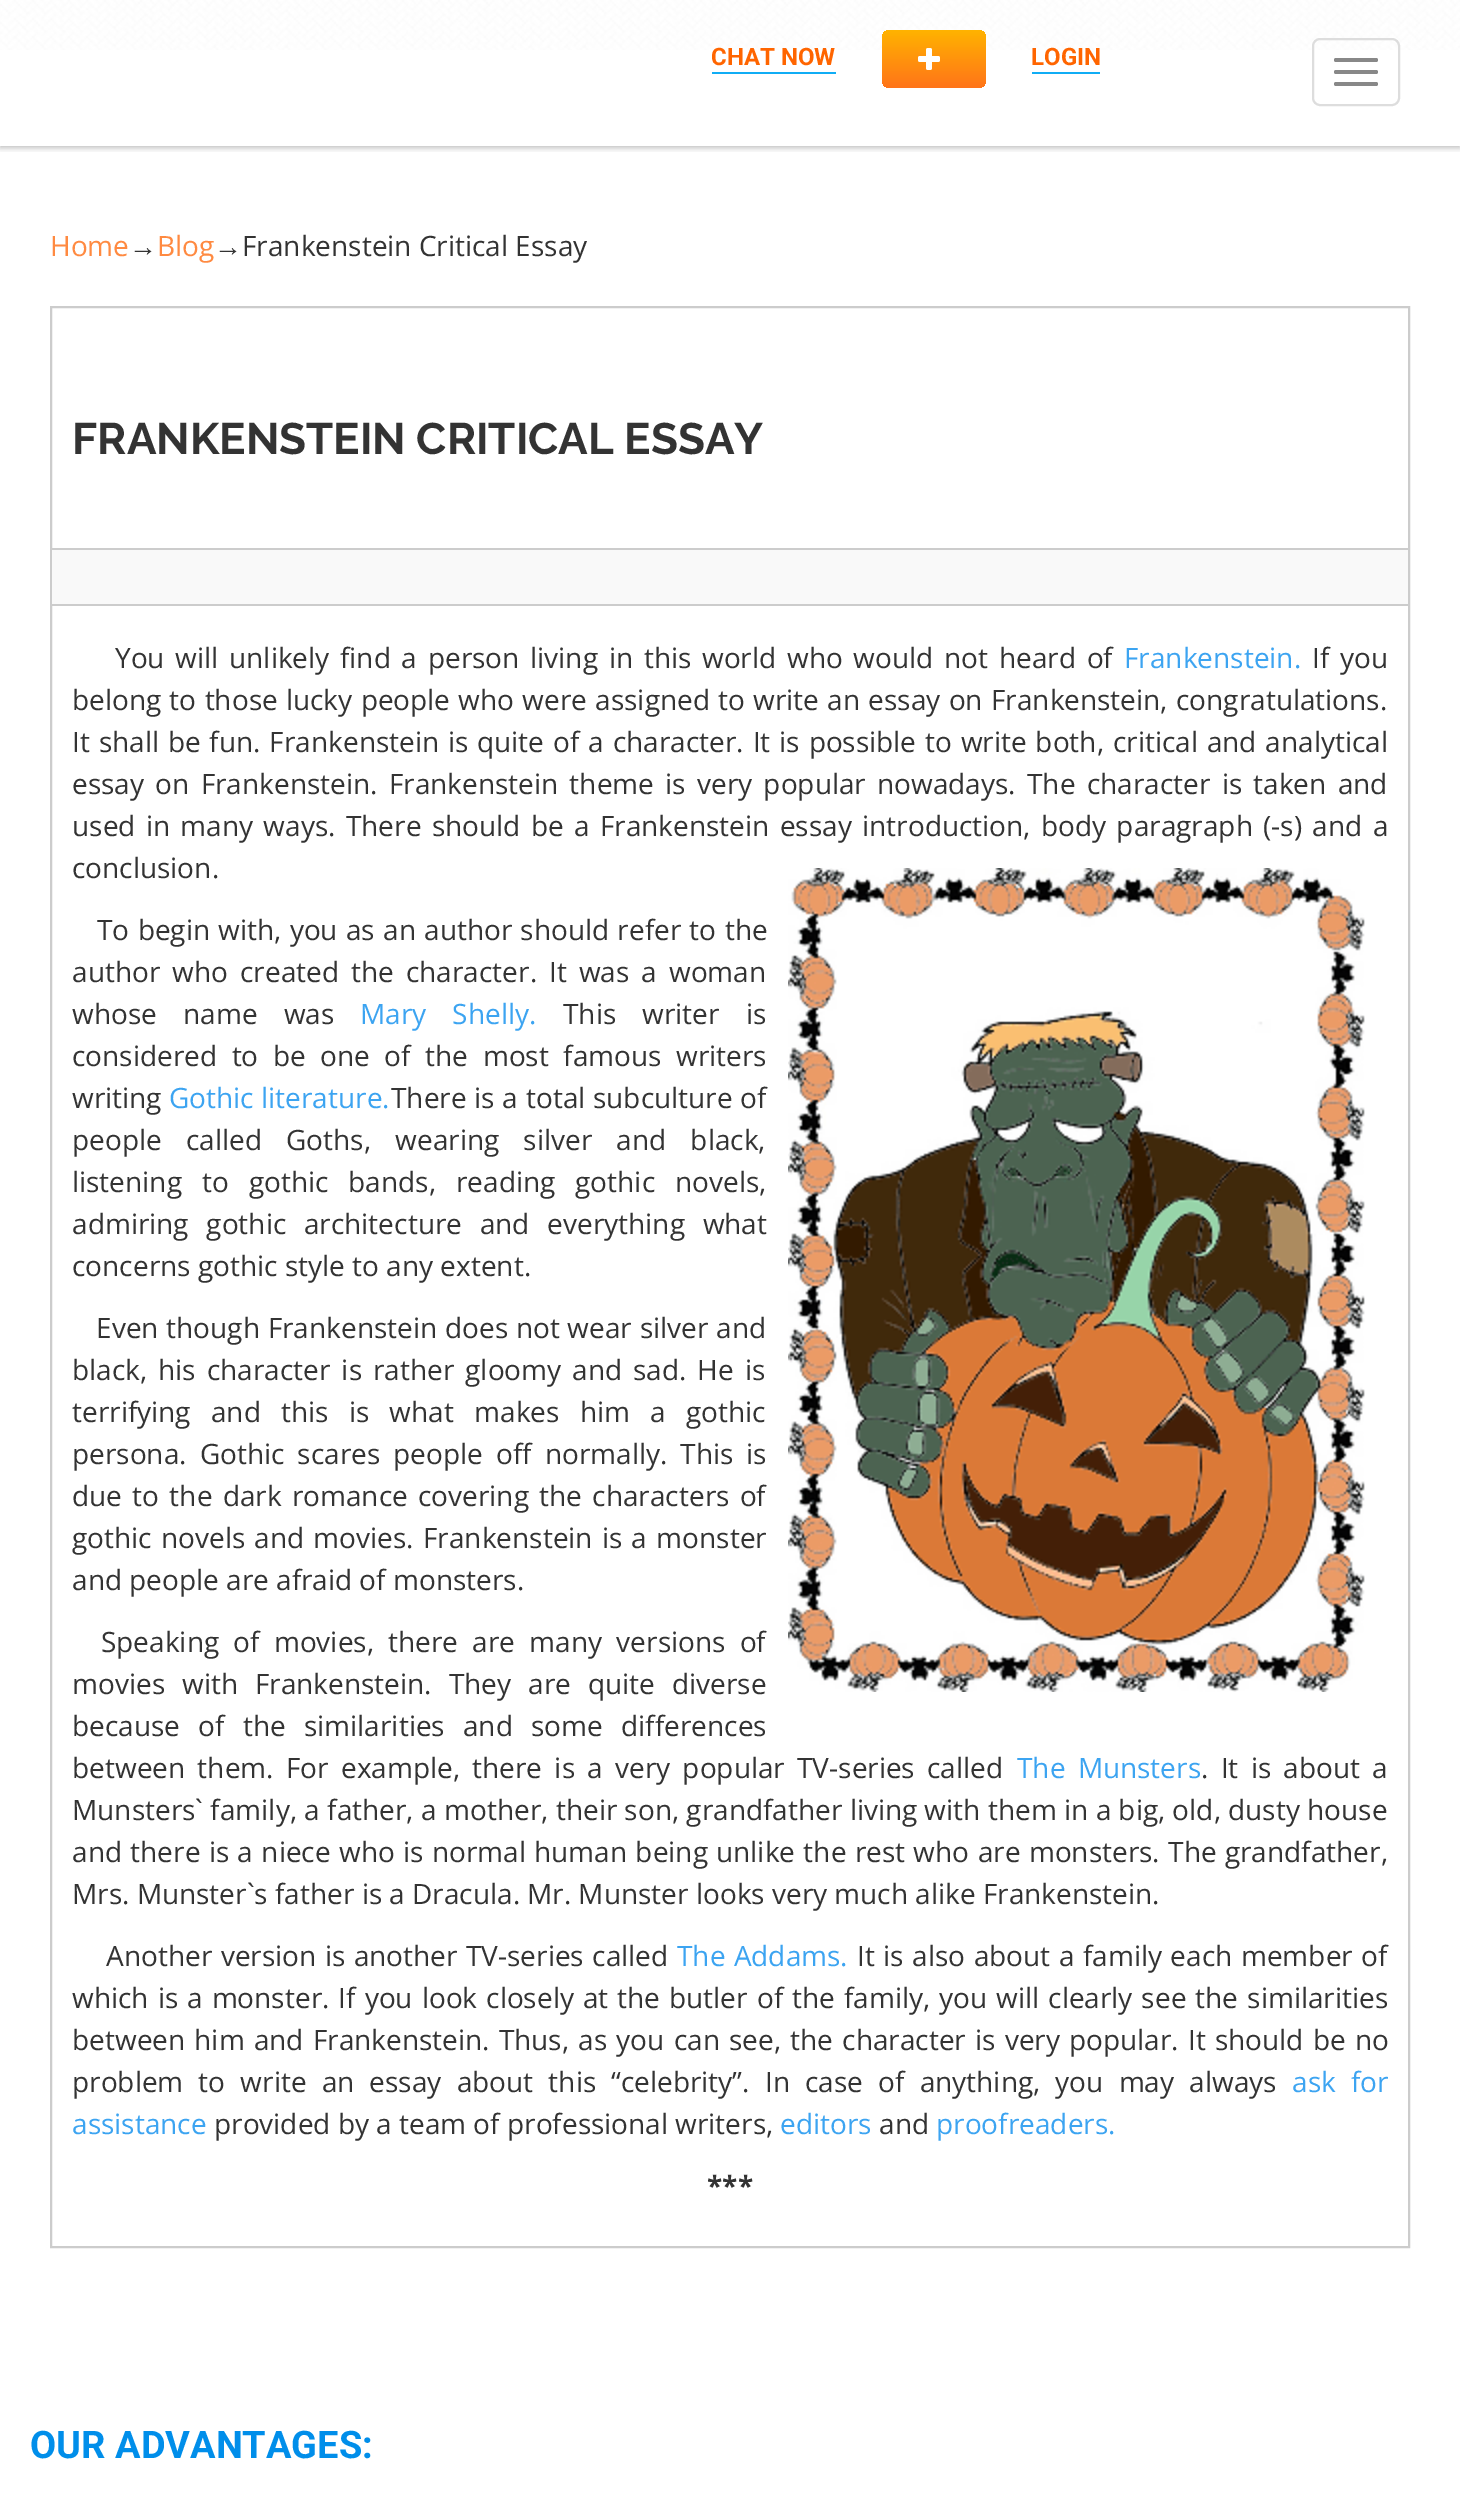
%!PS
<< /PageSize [1460 2513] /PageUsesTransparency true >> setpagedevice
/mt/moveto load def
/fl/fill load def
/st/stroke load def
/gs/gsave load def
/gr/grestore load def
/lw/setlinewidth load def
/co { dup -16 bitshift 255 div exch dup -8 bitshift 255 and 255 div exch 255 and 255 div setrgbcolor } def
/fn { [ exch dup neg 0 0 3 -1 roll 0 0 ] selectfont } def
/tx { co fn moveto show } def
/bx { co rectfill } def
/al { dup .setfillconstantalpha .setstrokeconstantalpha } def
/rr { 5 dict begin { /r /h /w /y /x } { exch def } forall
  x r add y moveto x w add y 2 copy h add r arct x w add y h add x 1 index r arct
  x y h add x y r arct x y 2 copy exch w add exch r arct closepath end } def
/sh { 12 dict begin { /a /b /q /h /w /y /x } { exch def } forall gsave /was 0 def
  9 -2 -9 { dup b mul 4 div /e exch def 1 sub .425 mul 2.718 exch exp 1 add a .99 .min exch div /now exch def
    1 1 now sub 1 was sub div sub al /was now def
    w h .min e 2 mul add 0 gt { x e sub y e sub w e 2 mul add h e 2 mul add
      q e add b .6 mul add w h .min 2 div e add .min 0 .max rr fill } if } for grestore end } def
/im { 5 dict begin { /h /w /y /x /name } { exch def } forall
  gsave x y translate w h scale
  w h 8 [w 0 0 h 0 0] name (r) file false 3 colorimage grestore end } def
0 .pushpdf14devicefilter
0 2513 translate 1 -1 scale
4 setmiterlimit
0 0 1460 2513 16#FFFFFF bx
(media/1.raw) 0 0 1460 50 im
gs
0 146 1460 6 rectclip
16#000000 co
0 2 1460 146 0 3 .25 sh
gr
0.9 al
0 0 1460 50 16#FFFFFF bx
1 al
712 72 124 2 16#10ADF5 bx
gs 882 30 104 58 8 rr clip newpath
<< /ShadingType 2 /ColorSpace /DeviceRGB /Coords [934 30 934 88] /Extend [true true] /Function << /FunctionType 2 /Domain [0 1] /C0 [1 .702 0] /C1 [1 .455 .098] /N 1 >> >> shfill gr
(media/2.raw) 918 48 22 22 im
1032 72 68 2 16#10ADF5 bx
16#DDDDDD co
2 lw
1313 39 86 66 7 rr st
16#888888 co
1334 58 44 4 2 rr fl
1334 70 44 4 2 rr fl
1334 82 44 4 2 rr fl
16#CCCCCC co
51 307 1358 1940 rectstroke
52 550 1356 54 16#F9F9F9 bx
52 548 1356 2 16#CCCCCC bx
52 604 1356 2 16#CCCCCC bx
(media/3.raw) 788 868 577 824 im
(CHAT NOW) 711 65 /Roboto-Bold 24 16#FF6500 tx
(LOGIN) 1031 65 /Roboto-Bold 24 16#FF6500 tx
(Home) 50 256 /OpenSans-Regular 28 16#FF8A41 tx
(→) 129 256 /LiberationSans-Regular 28 16#333333 tx
(Blog) 157 256 /OpenSans-Regular 28 16#FF8A41 tx
(→) 214 256 /LiberationSans-Regular 28 16#333333 tx
(Frankenstein Critical Essay) 242 256 /OpenSans-Regular 28 16#333333 tx
(FRANKENSTEIN CRITICAL ESSAY) 72 454 /Raleway-Thin 44 16#333333 tx
/OpenSans-Regular 28 fn
115 668 mt 3.5 0 32 (You will unlikely find a person living in this world who would not heard of) widthshow
(Frankenstein.) 1124 668 /OpenSans-Regular 28 16#3CA4F1 tx
16#333333 co
1312 668 mt 3.5 0 32 (If you) widthshow
72 710 mt 1 0 32 (belong to those lucky people who were assigned to write an essay on Frankenstein, congratulations.) widthshow
72 752 mt 1.6 0 32 (It shall be fun. Frankenstein is quite of a character. It is possible to write both, critical and analytical) widthshow
72 794 mt 4 0 32 (essay on Frankenstein. Frankenstein theme is very popular nowadays. The character is taken and) widthshow
72 836 mt 3.1 0 32 (used in many ways. There should be a Frankenstein essay introduction, body paragraph \(-s\) and a) widthshow
(conclusion.) 72 878 /OpenSans-Regular 28 16#333333 tx
97 940 mt 1 0 32 (To begin with, you as an author should refer to the) widthshow
72 982 mt 4.75 0 32 (author who created the character. It was a woman) widthshow
72 1024 mt 19 0 32 (whose name was) widthshow
16#3CA4F1 co
360 1024 mt 19 0 32 (Mary Shelly.) widthshow
16#333333 co
563 1024 mt 19 0 32 (This writer is) widthshow
72 1066 mt 7.25 0 32 (considered to be one of the most famous writers) widthshow
(writing) 72 1108 /OpenSans-Regular 28 16#333333 tx
(Gothic literature.) 169 1108 /OpenSans-Regular 28 16#3CA4F1 tx
16#333333 co
391 1108 mt .5 0 32 (There is a total subculture of) widthshow
72 1150 mt 17 0 32 (people called Goths, wearing silver and black,) widthshow
72 1192 mt 12.75 0 32 (listening to gothic bands, reading gothic novels,) widthshow
72 1234 mt 10.5 0 32 (admiring gothic architecture and everything what) widthshow
(concerns gothic style to any extent.) 72 1276 /OpenSans-Regular 28 16#333333 tx
96 1338 mt .5 0 32 (Even though Frankenstein does not wear silver and) widthshow
72 1380 mt 3.75 0 32 (black, his character is rather gloomy and sad. He is) widthshow
72 1422 mt 13 0 32 (terrifying and this is what makes him a gothic) widthshow
72 1464 mt 5.75 0 32 (persona. Gothic scares people off normally. This is) widthshow
72 1506 mt 3 0 32 (due to the dark romance covering the characters of) widthshow
72 1548 mt 2 0 32 (gothic novels and movies. Frankenstein is a monster) widthshow
(and people are afraid of monsters.) 72 1590 /OpenSans-Regular 28 16#333333 tx
101 1652 mt 7 0 32 (Speaking of movies, there are many versions of) widthshow
72 1694 mt 9.75 0 32 (movies with Frankenstein. They are quite diverse) widthshow
72 1736 mt 11 0 32 (because of the similarities and some differences) widthshow
72 1778 mt 5 0 32 (between them. For example, there is a very popular TV-series called) widthshow
16#3CA4F1 co
1017 1778 mt 5 0 32 (The Munsters) widthshow
16#333333 co
1201 1778 mt 5 0 32 (. It is about a) widthshow
72 1820 mt .1 0 32 (Munsters` family, a father, a mother, their son, grandfather living with them in a big, old, dusty house) widthshow
72 1862 mt 1.1 0 32 (and there is a niece who is normal human being unlike the rest who are monsters. The grandfather,) widthshow
(Mrs. Munster`s father is a Dracula. Mr. Munster looks very much alike Frankenstein.) 72 1904 /OpenSans-Regular 28 16#333333 tx
106 1966 mt 1.25 0 32 (Another version is another TV-series called) widthshow
16#3CA4F1 co
677 1966 mt 1 0 32 (The Addams.) widthshow
16#333333 co
857 1966 mt 1.25 0 32 (It is also about a family each member of) widthshow
72 2008 mt 1.75 0 32 (which is a monster. If you look closely at the butler of the family, you will clearly see the similarities) widthshow
72 2050 mt 1.9 0 32 (between him and Frankenstein. Thus, as you can see, the character is very popular. It should be no) widthshow
72 2092 mt 7.9 0 32 (problem to write an essay about this “celebrity”. In case of anything, you may always) widthshow
16#3CA4F1 co
1292 2092 mt 7.9 0 32 (ask for) widthshow
(assistance) 72 2134 /OpenSans-Regular 28 16#3CA4F1 tx
(provided by a team of professional writers,) 214 2134 /OpenSans-Regular 28 16#333333 tx
(editors) 780 2134 /OpenSans-Regular 28 16#3CA4F1 tx
(and) 879 2134 /OpenSans-Regular 28 16#333333 tx
(proofreaders.) 936 2134 /OpenSans-Regular 28 16#3CA4F1 tx
(***) 707 2196 /OpenSans-Bold 28 16#333333 tx
(OUR ADVANTAGES:) 30 2458 /Roboto-Bold 38 16#008EEA tx
.poppdf14devicefilter showpage
